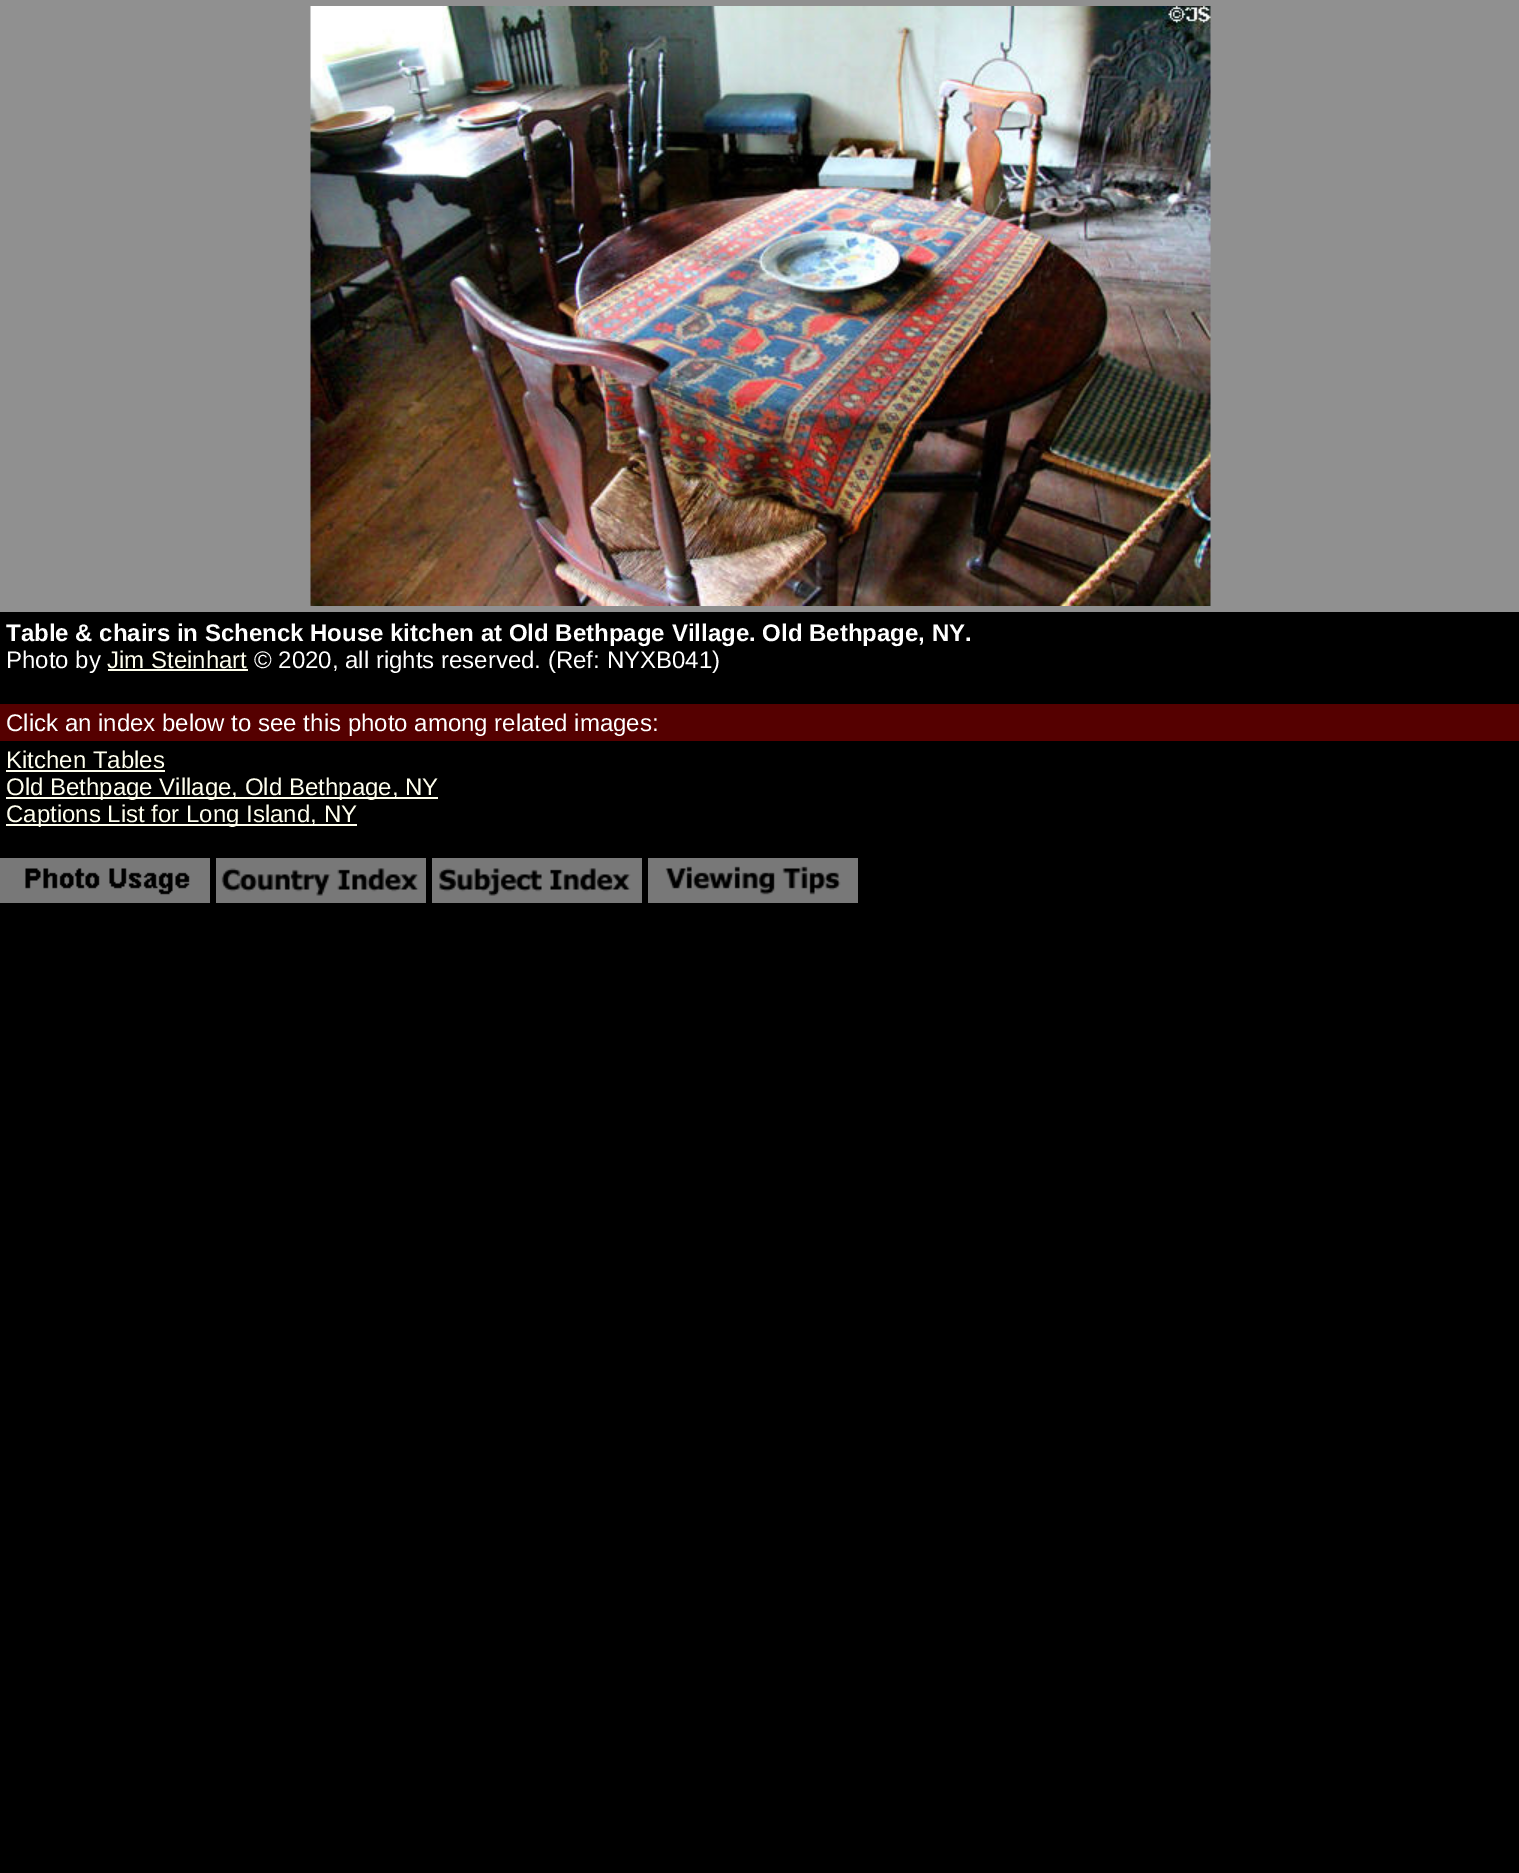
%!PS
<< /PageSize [1519 1873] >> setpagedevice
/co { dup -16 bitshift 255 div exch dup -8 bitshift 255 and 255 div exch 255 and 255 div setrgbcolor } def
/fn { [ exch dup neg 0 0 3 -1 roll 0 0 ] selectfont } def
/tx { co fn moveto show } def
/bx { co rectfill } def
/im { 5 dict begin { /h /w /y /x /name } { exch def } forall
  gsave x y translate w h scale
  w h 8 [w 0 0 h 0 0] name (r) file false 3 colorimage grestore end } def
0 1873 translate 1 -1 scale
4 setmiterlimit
0 0 1519 1873 16#000000 bx
0 0 1519 612 16#909090 bx
(media/1.raw) 310 6 901 600 im
108 669 140 2 16#FFFFEE bx
0 704 1519 37 16#550000 bx
6 770 159 2 16#FFFFEE bx
6 797 432 2 16#FFFFEE bx
6 824 351 2 16#FFFFEE bx
(media/2.raw) 0 858 210 45 im
(media/3.raw) 216 858 210 45 im
(media/4.raw) 432 858 210 45 im
(media/5.raw) 648 858 210 45 im
(Table & chairs in Schenck House kitchen at Old Bethpage Village. Old Bethpage, NY.) 6 641 /LiberationSans-Bold 24 16#FFFFFF tx
(Photo by) 6 668 /LiberationSans-Regular 24 16#FFFFFF tx
(Jim Steinhart) 107 668 /LiberationSans-Regular 24 16#FFFFEE tx
(© 2020, all rights reserved. \(Ref: NYXB041\)) 254 668 /LiberationSans-Regular 24 16#FFFFFF tx
(Click an index below to see this photo among related images:) 6 731 /LiberationSans-Regular 24 16#FFFFFF tx
(Kitchen Tables) 6 768 /LiberationSans-Regular 24 16#FFFFEE tx
(Old Bethpage Village, Old Bethpage, NY) 6 795 /LiberationSans-Regular 24 16#FFFFEE tx
(Captions List for Long Island, NY) 6 822 /LiberationSans-Regular 24 16#FFFFEE tx
showpage
